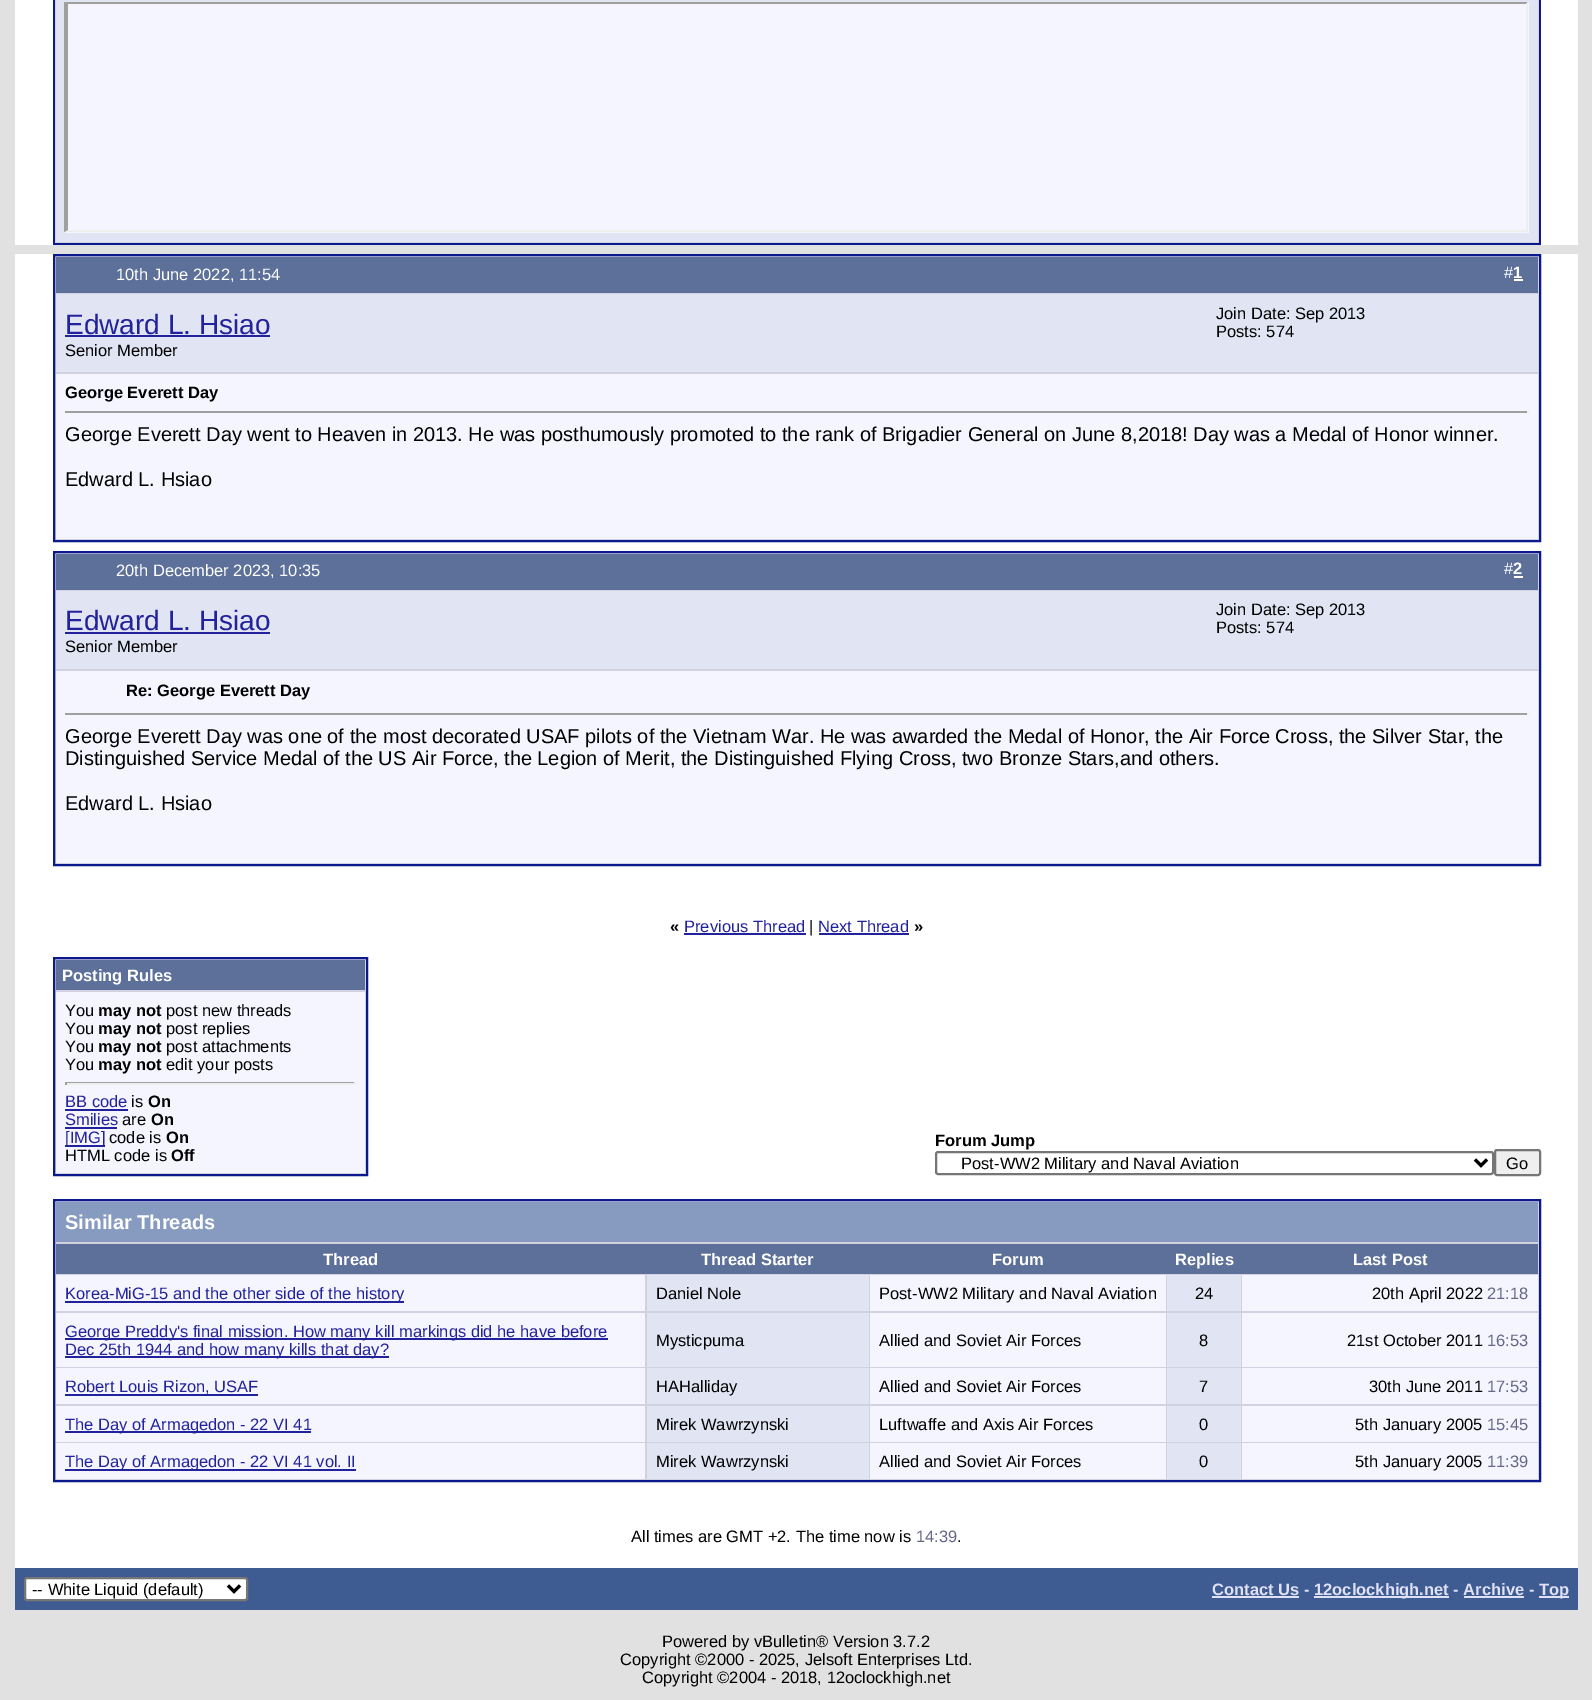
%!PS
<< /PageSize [1592 1700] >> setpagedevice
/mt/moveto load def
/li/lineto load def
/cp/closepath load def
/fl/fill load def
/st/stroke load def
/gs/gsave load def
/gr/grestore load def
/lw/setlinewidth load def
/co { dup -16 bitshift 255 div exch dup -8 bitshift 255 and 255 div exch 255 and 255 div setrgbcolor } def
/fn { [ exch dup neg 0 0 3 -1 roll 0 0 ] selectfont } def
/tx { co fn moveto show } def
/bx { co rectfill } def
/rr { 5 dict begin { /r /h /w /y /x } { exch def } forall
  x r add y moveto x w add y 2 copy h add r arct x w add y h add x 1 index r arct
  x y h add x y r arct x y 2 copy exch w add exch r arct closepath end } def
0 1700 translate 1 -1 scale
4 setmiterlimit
0 0 1592 1700 16#E1E1E2 bx
15 0 1563 245 16#FFFFFF bx
55 0 1484 243 16#D1D1E1 bx
1539 0 2 245 16#0B198C bx
53 243 1488 2 16#0B198C bx
53 0 2 245 16#0B198C bx
56 0 1482 242 16#E1E4F2 bx
65 2 1464 231 16#F5F5FF bx
16#9F9F9F co
64 2 mt 1528 2 li 1526 4 li 68 4 li cp fl
16#EEEEEE co
1528 2 mt 1528 232 li 1526 230 li 1526 4 li cp fl
1528 232 mt 64 232 li 68 230 li 1526 230 li cp fl
16#9F9F9F co
64 232 mt 64 2 li 68 4 li 68 230 li cp fl
15 254 1563 1314 16#FFFFFF bx
16#D1D1E1 co
54 255 mt 1540 255 li 1540 541 li 54 541 li cp gs fl gr
16#0B198C co
2 lw
st
56 257 1482 36 16#5C7099 bx
1514 279 9 2 16#FFFFFF bx
56 294 1482 78 16#E1E4F2 bx
65 335 205 2 16#22229C bx
56 374 1482 165 16#F5F5FF bx
65 411 1464 2 16#9F9F9F bx
1527 411 2 2 16#EEEEEE bx
16#D1D1E1 co
54 552 mt 1540 552 li 1540 865 li 54 865 li cp gs fl gr
16#0B198C co
st
56 554 1482 36 16#5C7099 bx
1514 576 9 2 16#FFFFFF bx
56 591 1482 78 16#E1E4F2 bx
65 632 205 2 16#22229C bx
56 671 1482 192 16#F5F5FF bx
65 713 1464 2 16#9F9F9F bx
1527 713 2 2 16#EEEEEE bx
684 933 122 2 16#22229C bx
819 933 90 2 16#22229C bx
16#D1D1E1 co
54 958 mt 367 958 li 367 1175 li 54 1175 li cp gs fl gr
16#0B198C co
st
56 960 309 30 16#5C7099 bx
56 992 309 181 16#F5F5FF bx
65 1082 291 1 16#9F9F9F bx
354 1082 2 3 16#EEEEEE bx
65 1083 291 2 16#EEEEEE bx
65 1082 2 3 16#9F9F9F bx
65 1109 63 2 16#22229C bx
65 1127 52 2 16#22229C bx
65 1145 40 2 16#22229C bx
16#767676 co
936 1152 557 22 2 rr st
16#000000 co
3 lw
1475 1159.5 mt 1481 1165.5 li 1487 1159.5 li st
16#EFEFEF co
1495 1150 45 25 2 rr gs fl gr
16#767676 co
2 lw
st
16#D1D1E1 co
54 1200 mt 1540 1200 li 1540 1481 li 54 1481 li cp gs fl gr
16#0B198C co
st
56 1202 1482 40 16#869BBF bx
56 1244 1482 30 16#5C7099 bx
56 1275 589 36 16#F5F5FF bx
65 1301 339 2 16#22229C bx
647 1275 222 36 16#E1E4F2 bx
870 1275 296 36 16#F5F5FF bx
1167 1275 74 36 16#E1E4F2 bx
1242 1275 296 36 16#F5F5FF bx
56 1313 589 54 16#F5F5FF bx
65 1338 543 2 16#22229C bx
65 1356 324 2 16#22229C bx
647 1313 222 54 16#E1E4F2 bx
870 1313 296 54 16#F5F5FF bx
1167 1313 74 54 16#E1E4F2 bx
1242 1313 296 54 16#F5F5FF bx
56 1368 589 36 16#F5F5FF bx
65 1394 193 2 16#22229C bx
647 1368 222 36 16#E1E4F2 bx
870 1368 296 36 16#F5F5FF bx
1167 1368 74 36 16#E1E4F2 bx
1242 1368 296 36 16#F5F5FF bx
56 1406 589 36 16#F5F5FF bx
65 1431 246 2 16#22229C bx
647 1406 222 36 16#E1E4F2 bx
870 1406 296 36 16#F5F5FF bx
1167 1406 74 36 16#E1E4F2 bx
1242 1406 296 36 16#F5F5FF bx
56 1443 589 36 16#F5F5FF bx
65 1469 291 2 16#22229C bx
647 1443 222 36 16#E1E4F2 bx
870 1443 296 36 16#F5F5FF bx
1167 1443 74 36 16#E1E4F2 bx
1242 1443 296 36 16#F5F5FF bx
15 1568 1563 42 16#3E5C92 bx
16#FFFFFF co
25 1578 222 22 2 rr gs fl gr
16#767676 co
st
16#000000 co
3 lw
228 1585.5 mt 234 1591.5 li 240 1585.5 li st
1212 1596 87 2 16#E0E0F6 bx
1314 1596 135 2 16#E0E0F6 bx
1464 1596 60 2 16#E0E0F6 bx
1539 1596 30 2 16#E0E0F6 bx
(10th June 2022, 11:54) 116 280 /LiberationSans-Regular 16.5 16#FFFFFF tx
(#) 1504 278 /LiberationSans-Regular 16.5 16#FFFFFF tx
(1) 1513 278 /LiberationSans-Bold 16.5 16#FFFFFF tx
(Edward L. Hsiao) 65 334 /LiberationSans-Regular 28 16#22229C tx
(Senior Member) 65 356 /LiberationSans-Regular 16.5 16#000000 tx
(Join Date: Sep 2013) 1216 319 /LiberationSans-Regular 16.5 16#000000 tx
(Posts: 574) 1216 337 /LiberationSans-Regular 16.5 16#000000 tx
(George Everett Day) 65 398 /LiberationSans-Bold 16.5 16#000000 tx
(George Everett Day went to Heaven in 2013. He was posthumously promoted to the rank of Brigadier General on June 8,2018! Day was a Medal of Honor winner.) 65 441 /LiberationSans-Regular 20 16#000000 tx
(Edward L. Hsiao) 65 486 /LiberationSans-Regular 20 16#000000 tx
(20th December 2023, 10:35) 116 576 /LiberationSans-Regular 16.5 16#FFFFFF tx
(#) 1504 574 /LiberationSans-Regular 16.5 16#FFFFFF tx
(2) 1513 574 /LiberationSans-Bold 16.5 16#FFFFFF tx
(Edward L. Hsiao) 65 630 /LiberationSans-Regular 28 16#22229C tx
(Senior Member) 65 652 /LiberationSans-Regular 16.5 16#000000 tx
(Join Date: Sep 2013) 1216 615 /LiberationSans-Regular 16.5 16#000000 tx
(Posts: 574) 1216 633 /LiberationSans-Regular 16.5 16#000000 tx
(Re: George Everett Day) 126 696 /LiberationSans-Bold 16.5 16#000000 tx
(George Everett Day was one of the most decorated USAF pilots of the Vietnam War. He was awarded the Medal of Honor, the Air Force Cross, the Silver Star, the) 65 743 /LiberationSans-Regular 20 16#000000 tx
(Distinguished Service Medal of the US Air Force, the Legion of Merit, the Distinguished Flying Cross, two Bronze Stars,and others.) 65 765 /LiberationSans-Regular 20 16#000000 tx
(Edward L. Hsiao) 65 810 /LiberationSans-Regular 20 16#000000 tx
(«) 670 932 /LiberationSans-Bold 16.5 16#000000 tx
(Previous Thread) 684 932 /LiberationSans-Regular 16.5 16#22229C tx
(|) 809 932 /LiberationSans-Regular 16.5 16#000000 tx
(Next Thread) 818 932 /LiberationSans-Regular 16.5 16#22229C tx
(») 914 932 /LiberationSans-Bold 16.5 16#000000 tx
(Posting Rules) 62 981 /LiberationSans-Bold 16.5 16#FFFFFF tx
(You) 65 1016 /LiberationSans-Regular 16.5 16#000000 tx
(may not) 98 1016 /LiberationSans-Bold 16.5 16#000000 tx
(post new threads) 166 1016 /LiberationSans-Regular 16.5 16#000000 tx
(You) 65 1034 /LiberationSans-Regular 16.5 16#000000 tx
(may not) 98 1034 /LiberationSans-Bold 16.5 16#000000 tx
(post replies) 166 1034 /LiberationSans-Regular 16.5 16#000000 tx
(You) 65 1052 /LiberationSans-Regular 16.5 16#000000 tx
(may not) 98 1052 /LiberationSans-Bold 16.5 16#000000 tx
(post attachments) 166 1052 /LiberationSans-Regular 16.5 16#000000 tx
(You) 65 1070 /LiberationSans-Regular 16.5 16#000000 tx
(may not) 98 1070 /LiberationSans-Bold 16.5 16#000000 tx
(edit your posts) 166 1070 /LiberationSans-Regular 16.5 16#000000 tx
(BB code) 65 1107 /LiberationSans-Regular 16.5 16#22229C tx
(is) 131 1107 /LiberationSans-Regular 16.5 16#000000 tx
(On) 148 1107 /LiberationSans-Bold 16.5 16#000000 tx
(Smilies) 65 1125 /LiberationSans-Regular 16.5 16#22229C tx
(are) 122 1125 /LiberationSans-Regular 16.5 16#000000 tx
(On) 151 1125 /LiberationSans-Bold 16.5 16#000000 tx
([IMG]) 65 1143 /LiberationSans-Regular 16.5 16#22229C tx
(code is) 109 1143 /LiberationSans-Regular 16.5 16#000000 tx
(On) 166 1143 /LiberationSans-Bold 16.5 16#000000 tx
(HTML code is) 65 1161 /LiberationSans-Regular 16.5 16#000000 tx
(Off) 171 1161 /LiberationSans-Bold 16.5 16#000000 tx
(Forum Jump) 935 1146 /LiberationSans-Bold 16.5 16#000000 tx
(Post-WW2 Military and Naval Aviation) 961 1169 /LiberationSans-Regular 16.5 16#000000 tx
(Go) 1506 1169 /LiberationSans-Regular 16.5 16#000000 tx
(Similar Threads) 65 1229 /LiberationSans-Bold 20 16#FFFFFF tx
(Thread) 323 1265 /LiberationSans-Bold 16.5 16#FFFFFF tx
(Thread Starter) 701 1265 /LiberationSans-Bold 16.5 16#FFFFFF tx
(Forum) 992 1265 /LiberationSans-Bold 16.5 16#FFFFFF tx
(Replies) 1175 1265 /LiberationSans-Bold 16.5 16#FFFFFF tx
(Last Post) 1353 1265 /LiberationSans-Bold 16.5 16#FFFFFF tx
(Korea-MiG-15 and the other side of the history) 65 1299 /LiberationSans-Regular 16.5 16#22229C tx
(Daniel Nole) 656 1299 /LiberationSans-Regular 16.5 16#000000 tx
(Post-WW2 Military and Naval Aviation) 879 1299 /LiberationSans-Regular 16.5 16#000000 tx
(24) 1195 1299 /LiberationSans-Regular 16.5 16#000000 tx
(20th April 2022) 1372 1299 /LiberationSans-Regular 16.5 16#000000 tx
(21:18) 1487 1299 /LiberationSans-Regular 16.5 16#666686 tx
(George Preddy's final mission. How many kill markings did he have before) 65 1337 /LiberationSans-Regular 16.5 16#22229C tx
(Dec 25th 1944 and how many kills that day?) 65 1355 /LiberationSans-Regular 16.5 16#22229C tx
(Mysticpuma) 656 1346 /LiberationSans-Regular 16.5 16#000000 tx
(Allied and Soviet Air Forces) 879 1346 /LiberationSans-Regular 16.5 16#000000 tx
(8) 1199 1346 /LiberationSans-Regular 16.5 16#000000 tx
(21st October 2011) 1347 1346 /LiberationSans-Regular 16.5 16#000000 tx
(16:53) 1487 1346 /LiberationSans-Regular 16.5 16#666686 tx
(Robert Louis Rizon, USAF) 65 1392 /LiberationSans-Regular 16.5 16#22229C tx
(HAHalliday) 656 1392 /LiberationSans-Regular 16.5 16#000000 tx
(Allied and Soviet Air Forces) 879 1392 /LiberationSans-Regular 16.5 16#000000 tx
(7) 1199 1392 /LiberationSans-Regular 16.5 16#000000 tx
(30th June 2011) 1369 1392 /LiberationSans-Regular 16.5 16#000000 tx
(17:53) 1487 1392 /LiberationSans-Regular 16.5 16#666686 tx
(The Day of Armagedon - 22 VI 41) 65 1430 /LiberationSans-Regular 16.5 16#22229C tx
(Mirek Wawrzynski) 656 1430 /LiberationSans-Regular 16.5 16#000000 tx
(Luftwaffe and Axis Air Forces) 879 1430 /LiberationSans-Regular 16.5 16#000000 tx
(0) 1199 1430 /LiberationSans-Regular 16.5 16#000000 tx
(5th January 2005) 1355 1430 /LiberationSans-Regular 16.5 16#000000 tx
(15:45) 1487 1430 /LiberationSans-Regular 16.5 16#666686 tx
(The Day of Armagedon - 22 VI 41 vol. II) 65 1467 /LiberationSans-Regular 16.5 16#22229C tx
(Mirek Wawrzynski) 656 1467 /LiberationSans-Regular 16.5 16#000000 tx
(Allied and Soviet Air Forces) 879 1467 /LiberationSans-Regular 16.5 16#000000 tx
(0) 1199 1467 /LiberationSans-Regular 16.5 16#000000 tx
(5th January 2005) 1355 1467 /LiberationSans-Regular 16.5 16#000000 tx
(11:39) 1487 1467 /LiberationSans-Regular 16.5 16#666686 tx
(All times are GMT +2. The time now is) 631 1542 /LiberationSans-Regular 16.5 16#000000 tx
(14:39) 916 1542 /LiberationSans-Regular 16.5 16#666686 tx
(.) 957 1542 /LiberationSans-Regular 16.5 16#000000 tx
(-- White Liquid \(default\)) 32 1595 /LiberationSans-Regular 16.5 16#000000 tx
(Contact Us -) 1212 1595 /LiberationSans-Bold 16.5 16#E0E0F6 tx
(12oclockhigh.net - Archive -) 1314 1595 /LiberationSans-Bold 16.5 16#E0E0F6 tx
(Top) 1539 1595 /LiberationSans-Bold 16.5 16#E0E0F6 tx
(Powered by vBulletin® Version 3.7.2) 662 1647 /LiberationSans-Regular 16.5 16#000000 tx
(Copyright ©2000 - 2025, Jelsoft Enterprises Ltd.) 620 1665 /LiberationSans-Regular 16.5 16#000000 tx
(Copyright ©2004 - 2018, 12oclockhigh.net) 642 1683 /LiberationSans-Regular 16.5 16#000000 tx
showpage
